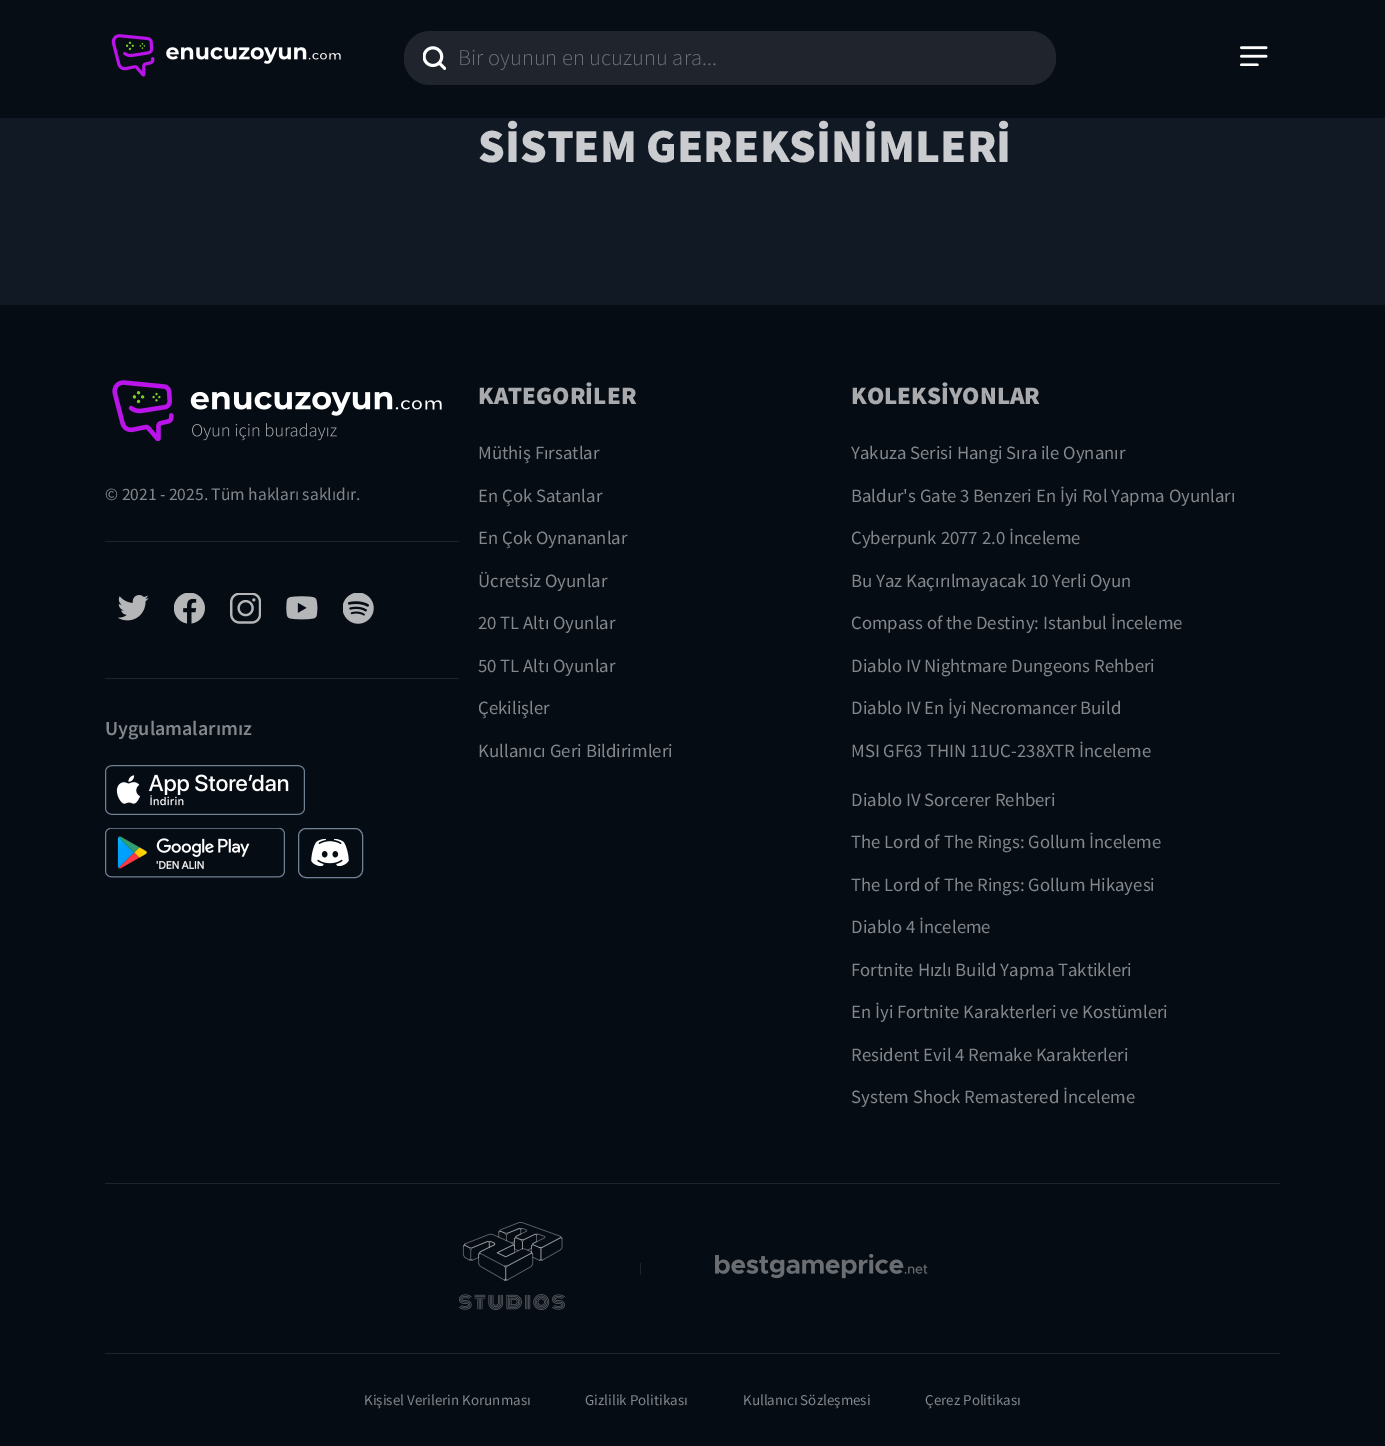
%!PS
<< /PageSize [1385 1446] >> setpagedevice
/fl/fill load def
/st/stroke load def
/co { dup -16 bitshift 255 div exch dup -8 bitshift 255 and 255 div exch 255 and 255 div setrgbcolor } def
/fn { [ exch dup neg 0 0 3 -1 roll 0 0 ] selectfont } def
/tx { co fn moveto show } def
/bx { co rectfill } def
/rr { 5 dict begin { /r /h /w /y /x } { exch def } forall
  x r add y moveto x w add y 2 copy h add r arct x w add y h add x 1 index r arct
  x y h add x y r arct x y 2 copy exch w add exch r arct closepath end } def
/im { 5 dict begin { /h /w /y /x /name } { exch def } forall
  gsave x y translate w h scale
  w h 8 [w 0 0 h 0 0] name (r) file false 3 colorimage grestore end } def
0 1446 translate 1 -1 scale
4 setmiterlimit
0 0 1385 1446 16#101924 bx
0 0 1385 118 16#070D15 bx
(media/1.raw) 111 34 230 43 im
16#20252D co
404 31 652 54 26 rr fl
(media/2.raw) 423 46 23 24 im
(media/3.raw) 1240 46 28 20 im
0 305 1385 1141 16#060C14 bx
(media/4.raw) 112 380 330 61 im
105 541 354 1 16#1F242C bx
(media/5.raw) 118 595 31 26 im
(media/6.raw) 174 593 31 31 im
(media/7.raw) 230 593 31 31 im
(media/8.raw) 286 596 32 24 im
(media/9.raw) 343 593 31 31 im
105 678 354 1 16#1F242C bx
(media/10.raw) 105 765 200 50 im
(media/11.raw) 105 828 180 50 im
16#728397 co
298.5 828.5 64 49 7.5 rr st
(media/12.raw) 311 839 38 27 im
105 1183 1175 1 16#1F242C bx
(media/13.raw) 459 1222 106 88 im
640 1263 1 12 16#1F242C bx
(media/14.raw) 715 1254 213 25 im
105 1353 1175 1 16#1F242C bx
(Bir oyunun en ucuzunu ara...) 458 65 /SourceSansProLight-Light 22.5 16#6E7177 tx
(SİSTEM GEREKSİNİMLERİ) 478 162 /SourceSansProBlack-Black 47.5 16#CACCCF tx
(© 2021 - 2025. Tüm hakları saklıdır.) 105 500 /SourceSansPro-Regular 17.5 16#83868A tx
(Uygulamalarımız) 105 735 /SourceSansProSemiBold-SemiBold 20 16#83868A tx
(KATEGORİLER) 478 404 /SourceSansProBlack-Black 25 16#A8AAAD tx
(Müthiş Fırsatlar) 478 459 /SourceSansPro-Regular 18.75 16#83868A tx
(En Çok Satanlar) 478 502 /SourceSansPro-Regular 18.75 16#83868A tx
(En Çok Oynananlar) 478 544 /SourceSansPro-Regular 18.75 16#83868A tx
(Ücretsiz Oyunlar) 478 587 /SourceSansPro-Regular 18.75 16#83868A tx
(20 TL Altı Oyunlar) 478 629 /SourceSansPro-Regular 18.75 16#83868A tx
(50 TL Altı Oyunlar) 478 672 /SourceSansPro-Regular 18.75 16#83868A tx
(Çekilişler) 478 714 /SourceSansPro-Regular 18.75 16#83868A tx
(Kullanıcı Geri Bildirimleri) 478 757 /SourceSansPro-Regular 18.75 16#83868A tx
(KOLEKSİYONLAR) 851 404 /SourceSansProBlack-Black 25 16#A8AAAD tx
(Yakuza Serisi Hangi Sıra ile Oynanır) 851 459 /SourceSansPro-Regular 18.75 16#83868A tx
(Baldur's Gate 3 Benzeri En İyi Rol Yapma Oyunları) 851 502 /SourceSansPro-Regular 18.75 16#83868A tx
(Cyberpunk 2077 2.0 İnceleme) 851 544 /SourceSansPro-Regular 18.75 16#83868A tx
(Bu Yaz Kaçırılmayacak 10 Yerli Oyun) 851 587 /SourceSansPro-Regular 18.75 16#83868A tx
(Compass of the Destiny: Istanbul İnceleme) 851 629 /SourceSansPro-Regular 18.75 16#83868A tx
(Diablo IV Nightmare Dungeons Rehberi) 851 672 /SourceSansPro-Regular 18.75 16#83868A tx
(Diablo IV En İyi Necromancer Build) 851 714 /SourceSansPro-Regular 18.75 16#83868A tx
(MSI GF63 THIN 11UC-238XTR İnceleme) 851 757 /SourceSansPro-Regular 18.75 16#83868A tx
(Diablo IV Sorcerer Rehberi) 851 806 /SourceSansPro-Regular 18.75 16#83868A tx
(The Lord of The Rings: Gollum İnceleme) 851 848 /SourceSansPro-Regular 18.75 16#83868A tx
(The Lord of The Rings: Gollum Hikayesi) 851 891 /SourceSansPro-Regular 18.75 16#83868A tx
(Diablo 4 İnceleme) 851 933 /SourceSansPro-Regular 18.75 16#83868A tx
(Fortnite Hızlı Build Yapma Taktikleri) 851 976 /SourceSansPro-Regular 18.75 16#83868A tx
(En İyi Fortnite Karakterleri ve Kostümleri) 851 1018 /SourceSansPro-Regular 18.75 16#83868A tx
(Resident Evil 4 Remake Karakterleri) 851 1061 /SourceSansPro-Regular 18.75 16#83868A tx
(System Shock Remastered İnceleme) 851 1103 /SourceSansPro-Regular 18.75 16#83868A tx
(Kişisel Verilerin Korunması) 364 1405 /SourceSansPro-Regular 15 16#83868A tx
(Gizlilik Politikası) 585 1405 /SourceSansPro-Regular 15 16#83868A tx
(Kullanıcı Sözleşmesi) 743 1405 /SourceSansPro-Regular 15 16#83868A tx
(Çerez Politikası) 925 1405 /SourceSansPro-Regular 15 16#83868A tx
showpage
